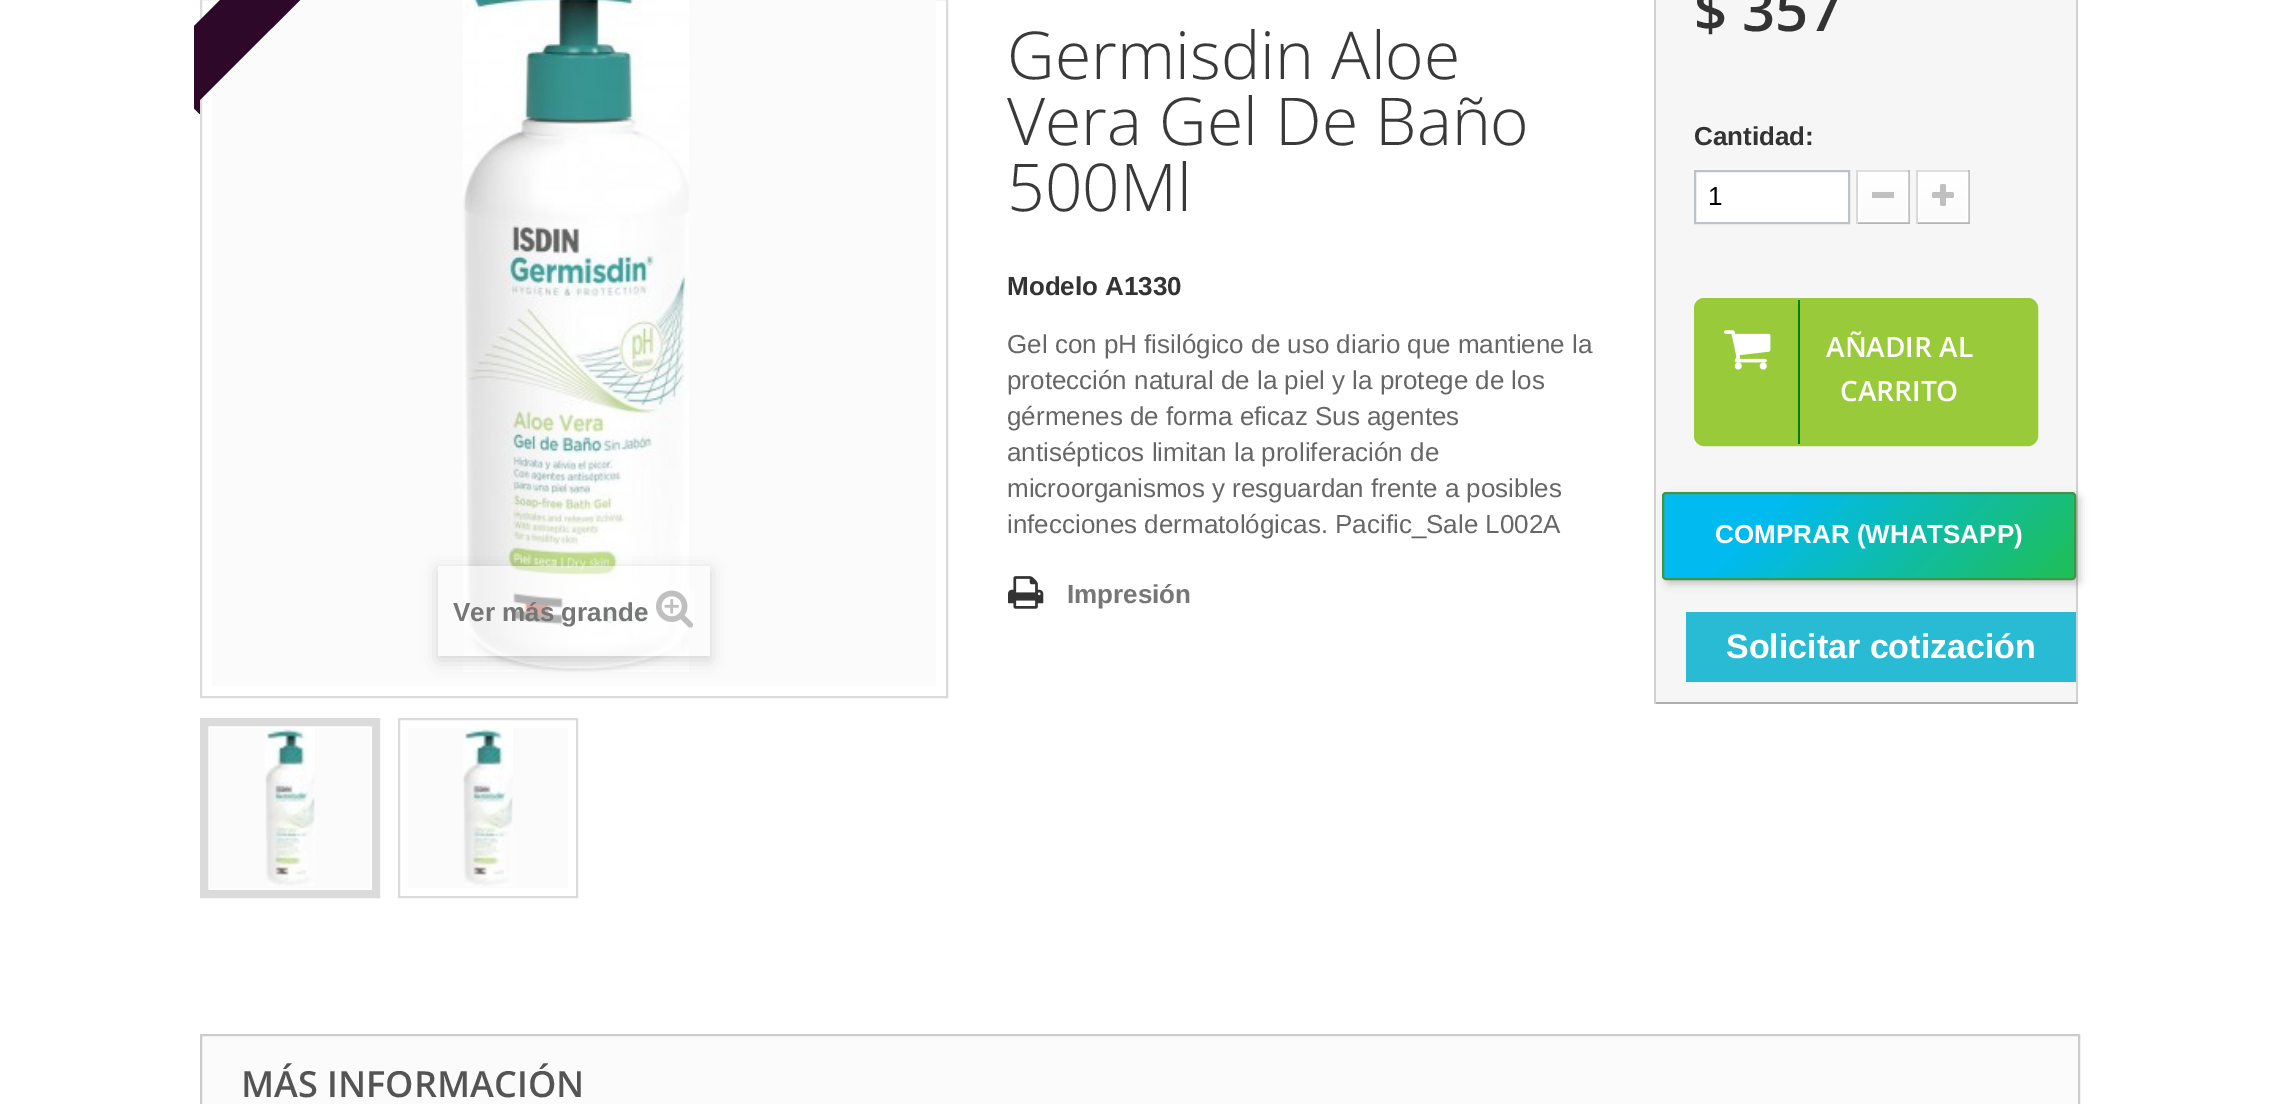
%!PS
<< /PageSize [2278 1104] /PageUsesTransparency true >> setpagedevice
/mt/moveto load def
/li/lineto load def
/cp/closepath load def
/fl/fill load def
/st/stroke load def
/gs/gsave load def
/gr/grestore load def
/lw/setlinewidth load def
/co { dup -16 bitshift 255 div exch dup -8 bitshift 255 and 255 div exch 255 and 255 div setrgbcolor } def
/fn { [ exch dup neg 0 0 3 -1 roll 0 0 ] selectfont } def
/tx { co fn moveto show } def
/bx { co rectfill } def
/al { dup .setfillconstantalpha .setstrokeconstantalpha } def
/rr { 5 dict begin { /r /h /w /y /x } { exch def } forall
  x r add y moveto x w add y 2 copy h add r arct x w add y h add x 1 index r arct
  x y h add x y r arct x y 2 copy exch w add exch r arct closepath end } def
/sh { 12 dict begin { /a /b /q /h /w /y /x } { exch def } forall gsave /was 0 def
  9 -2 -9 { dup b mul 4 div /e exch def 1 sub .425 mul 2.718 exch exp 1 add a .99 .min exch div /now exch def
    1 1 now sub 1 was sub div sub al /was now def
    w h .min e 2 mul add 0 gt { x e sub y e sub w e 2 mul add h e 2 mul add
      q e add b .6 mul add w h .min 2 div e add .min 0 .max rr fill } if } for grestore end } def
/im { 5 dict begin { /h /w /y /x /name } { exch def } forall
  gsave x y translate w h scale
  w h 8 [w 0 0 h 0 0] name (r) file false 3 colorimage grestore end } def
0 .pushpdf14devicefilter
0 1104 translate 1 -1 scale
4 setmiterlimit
0 0 2278 1104 16#FFFFFF bx
(media/1.raw) 1008 576 36 33 im
1656 0 420 702 16#F6F6F6 bx
2076 0 2 704 16#D2D0D0 bx
1654 702 424 2 16#B0AFAF bx
1654 0 2 704 16#D2D0D0 bx
16#FFFFFF co
1695 171 mt 1849 171 li 1849 223 li 1695 223 li cp gs fl gr
16#BDC2C9 co
2 lw
st
1856 170 54 2 16#DEDCDC bx
1908 170 2 54 16#C1BFBF bx
1856 222 54 2 16#B5B4B4 bx
1856 170 2 54 16#DAD8D8 bx
gs 1860 174 mt 1906 174 li 1906 220 li 1860 220 li cp clip newpath
<< /ShadingType 2 /ColorSpace /DeviceRGB /Coords [1883 174 1883 220] /Extend [true true] /Function << /FunctionType 2 /Domain [0 1] /C0 [1 1 1] /C1 [.984 .984 .984] /N 1 >> >> shfill gr
16#FFFFFF co
1859 173 48 48 rectstroke
1872 192 22 6 16#C0C0C0 bx
1916 170 54 2 16#DEDCDC bx
1968 170 2 54 16#C1BFBF bx
1916 222 54 2 16#B5B4B4 bx
1916 170 2 54 16#DAD8D8 bx
gs 1920 174 mt 1966 174 li 1966 220 li 1920 220 li cp clip newpath
<< /ShadingType 2 /ColorSpace /DeviceRGB /Coords [1943 174 1943 220] /Extend [true true] /Function << /FunctionType 2 /Domain [0 1] /C0 [1 1 1] /C1 [.984 .984 .984] /N 1 >> >> shfill gr
16#FFFFFF co
1919 173 48 48 rectstroke
(media/2.raw) 1932 184 22 22 im
16#99CA3A co
1695 299 342 146 9 rr gs fl gr
st
(media/3.raw) 1724 330 47 40 im
1798 300 2 144 16#008000 bx
16#000000 co
1666 496 414 88 4 4 .2 sh
gs 1664 494 mt 2074 494 li 2074 578 li 1664 578 li cp clip newpath
<< /ShadingType 2 /ColorSpace /DeviceRGB /Coords [1993 660 1746 413] /Extend [true true] /Function << /FunctionType 3 /Domain [0 1] /Functions [<< /FunctionType 2 /Domain [0 1] /C0 [.125 .749 .333] /C1 [.004 .729 .937] /N 1 >> << /FunctionType 2 /Domain [0 1] /C0 [.004 .729 .937] /C1 [.004 .729 .937] /N 1 >>] /Bounds [.74] /Encode [0 1 0 1] >> >> shfill gr
16#3E9546 co
1663 493 412 86 3 rr st
1686 612 390 70 16#29BBD4 bx
16#DBDBDB co
201 -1 746 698 rectstroke
212 0 724 686 16#FBFBFB bx
gs
194 0 170 114 rectclip
16#2D0829 co
145 75 mt 329 -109 li 369 -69 li 185 115 li cp fl
200 98.5 mt 200 114.5 li 192 106.5 li cp fl
gr
(media/4.raw) 463 0 226 672 im
gs
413 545 mt 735 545 li 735 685 li 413 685 li cp 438 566 mt 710 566 li 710 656 li 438 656 li cp eoclip newpath
16#000000 co
438 570 272 90 0 8 .16 sh
gr
0.5 al
464 566 217 90 16#FFFFFF bx
1 al
(media/5.raw) 656 590 38 38 im
16#DBDBDB co
201 719 178 178 rectstroke
210 728 160 160 16#FBFBFB bx
16#DBDBDB co
6 lw
205 723 170 170 rectstroke
(media/6.raw) 265 728 50 158 im
2 lw
399 719 178 178 rectstroke
408 728 160 160 16#FBFBFB bx
(media/6.raw) 463 728 50 158 im
201 1035 mt 2079 1035 li 2079 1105 li 201 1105 li cp gs fl gr
16#CCCCCC co
st
(Germisdin Aloe) 1007 79 /OpenSans-Light 66 16#3A3939 tx
(Vera Gel De Baño) 1007 145 /OpenSans-Light 66 16#3A3939 tx
(500Ml) 1007 211 /OpenSans-Light 66 16#3A3939 tx
(Modelo A1330) 1007 295 /LiberationSans-Bold 26 16#333333 tx
(Gel con pH fisilógico de uso diario que mantiene la) 1007 353 /LiberationSans-Regular 26 16#666666 tx
(protección natural de la piel y la protege de los) 1007 389 /LiberationSans-Regular 26 16#666666 tx
(gérmenes de forma eficaz Sus agentes) 1007 425 /LiberationSans-Regular 26 16#666666 tx
(antisépticos limitan la proliferación de) 1007 461 /LiberationSans-Regular 26 16#666666 tx
(microorganismos y resguardan frente a posibles) 1007 497 /LiberationSans-Regular 26 16#666666 tx
(infecciones dermatológicas. Pacific_Sale L002A) 1007 533 /LiberationSans-Regular 26 16#666666 tx
(Impresión) 1067 603 /LiberationSans-Bold 26 16#777676 tx
($ 357) 1694 31 /OpenSans-SemiBold 58 16#333333 tx
(Cantidad:) 1694 145 /LiberationSans-Bold 26 16#333333 tx
(1) 1708 205 /LiberationSans-Regular 26 16#000000 tx
(AÑADIR AL) 1826 357 /OpenSans-SemiBold 28 16#FFFFFF tx
(CARRITO) 1840 401 /OpenSans-SemiBold 28 16#FFFFFF tx
(COMPRAR \(WHATSAPP\)) 1715 543 /LiberationSans-Bold 26 16#FFFFFF tx
(Solicitar cotización) 1726 658 /LiberationSans-Bold 34 16#FFFFFF tx
(Ver más grande) 453 621 /LiberationSans-Bold 26 16#777676 tx
(MÁS INFORMACIÓN) 241 1097 /OpenSans-SemiBold 36 16#555454 tx
.poppdf14devicefilter showpage
